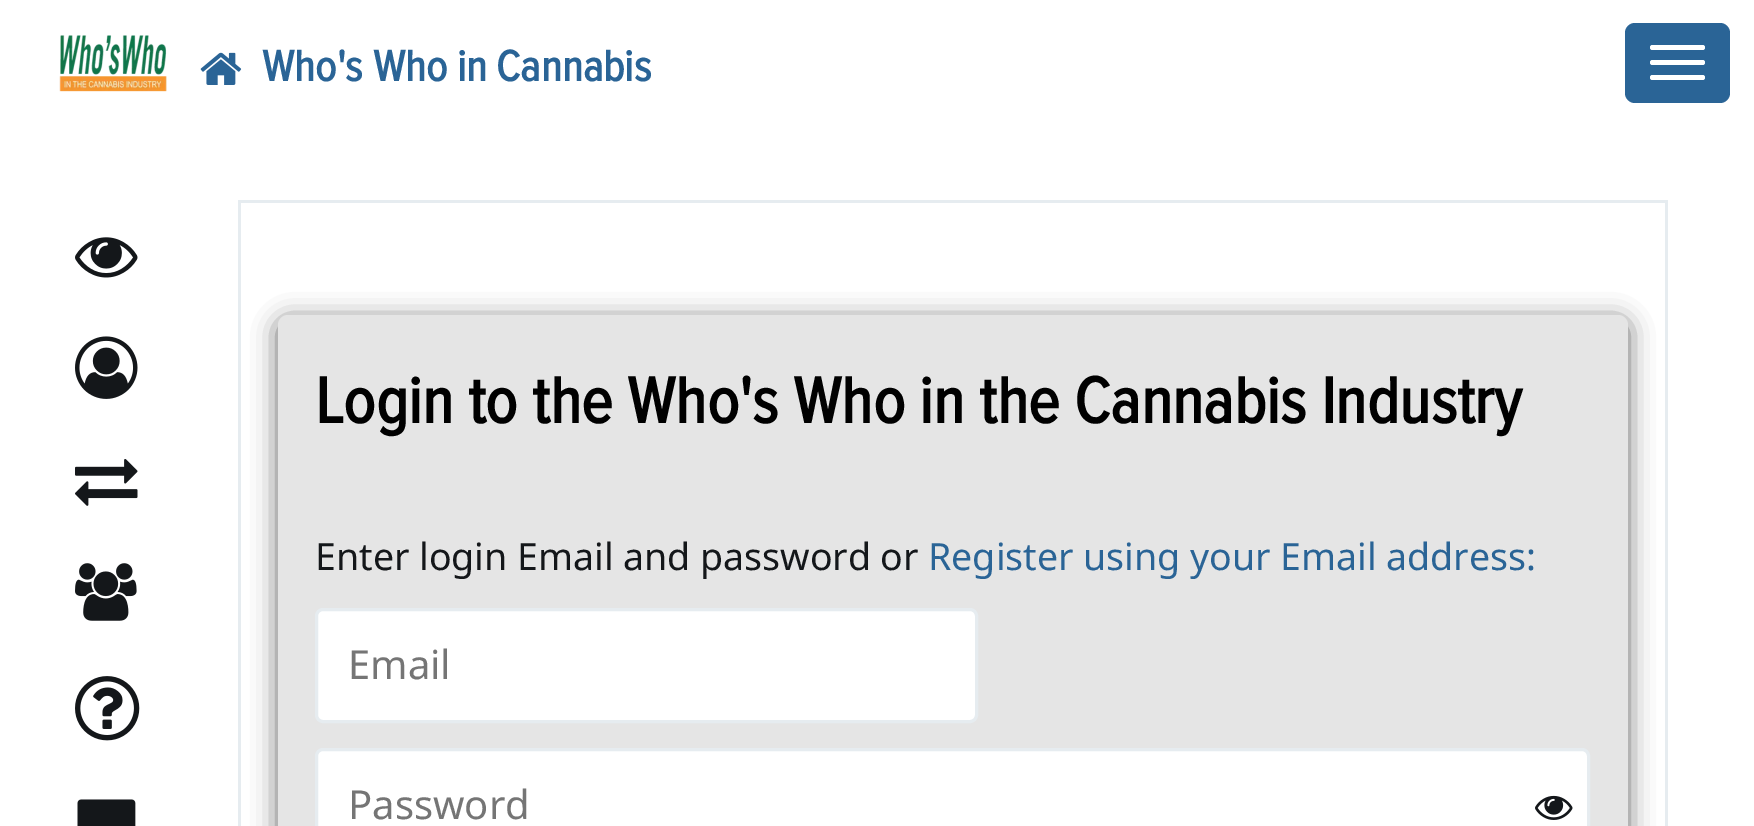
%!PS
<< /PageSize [1754 826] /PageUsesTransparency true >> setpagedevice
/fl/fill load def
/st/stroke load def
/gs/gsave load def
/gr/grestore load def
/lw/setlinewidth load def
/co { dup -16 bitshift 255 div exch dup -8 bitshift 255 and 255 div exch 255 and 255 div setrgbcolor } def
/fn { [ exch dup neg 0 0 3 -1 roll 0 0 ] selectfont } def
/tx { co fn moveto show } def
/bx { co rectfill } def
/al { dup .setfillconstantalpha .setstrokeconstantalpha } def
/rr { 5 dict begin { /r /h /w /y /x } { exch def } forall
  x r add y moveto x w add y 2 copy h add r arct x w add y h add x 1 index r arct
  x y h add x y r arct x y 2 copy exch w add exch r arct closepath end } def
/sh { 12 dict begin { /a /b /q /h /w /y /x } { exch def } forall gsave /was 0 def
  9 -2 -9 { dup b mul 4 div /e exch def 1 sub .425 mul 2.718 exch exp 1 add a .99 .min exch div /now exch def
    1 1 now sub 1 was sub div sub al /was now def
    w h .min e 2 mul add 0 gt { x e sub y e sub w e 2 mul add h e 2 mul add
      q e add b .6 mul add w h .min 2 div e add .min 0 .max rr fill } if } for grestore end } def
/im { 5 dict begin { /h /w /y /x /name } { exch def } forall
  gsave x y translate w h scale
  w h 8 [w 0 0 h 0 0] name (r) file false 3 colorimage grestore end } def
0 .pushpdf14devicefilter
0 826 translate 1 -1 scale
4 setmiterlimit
0 0 1754 826 16#FFFFFF bx
(media/1.raw) 59 35 108 57 im
(media/2.raw) 200 52 42 33 im
16#2A6496 co
1625 23 105 80 10 rr fl
16#FFFFFF co
1650 45 55 5 2.5 rr fl
1650 60 55 5 2.5 rr fl
1650 75 55 5 2.5 rr fl
(media/3.raw) 75 237 63 41 im
(media/4.raw) 75 336 63 63 im
(media/5.raw) 75 459 63 47 im
(media/6.raw) 75 563 62 58 im
(media/7.raw) 75 676 65 65 im
(media/8.raw) 77 799 59 27 im
238 200 1430 3 16#E6ECF0 bx
1665 200 3 626 16#E6ECF0 bx
238 200 3 626 16#E6ECF0 bx
16#666666 co
278 320 1350 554 10 12.5 1 sh
16#E5E5E5 co
278 315 1350 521 10 rr fl
16#FFFFFF co
316.5 609.5 660 112 6.5 rr gs fl gr
16#E6ECF0 co
3 lw
st
16#FFFFFF co
316.5 749.5 1272 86 6.5 rr gs fl gr
16#E6ECF0 co
st
(media/9.raw) 1535 795 38 25 im
(Who's Who in Cannabis) 262 81 /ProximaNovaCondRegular-Bold 45 16#2A6496 tx
(Login to the Who's Who in the Cannabis Industry) 315 423 /ProximaNovaCondRegular-Bold 67.5 16#000000 tx
(Enter login Email and password or) 315 570 /NotoSans-Regular 37.5 16#14171A tx
(Register using your Email address:) 928 570 /NotoSans-Regular 37.5 16#2A6496 tx
(Email) 348 679 /NotoSans-Regular 40 16#757575 tx
(Password) 348 819 /NotoSans-Regular 40 16#757575 tx
.poppdf14devicefilter showpage
